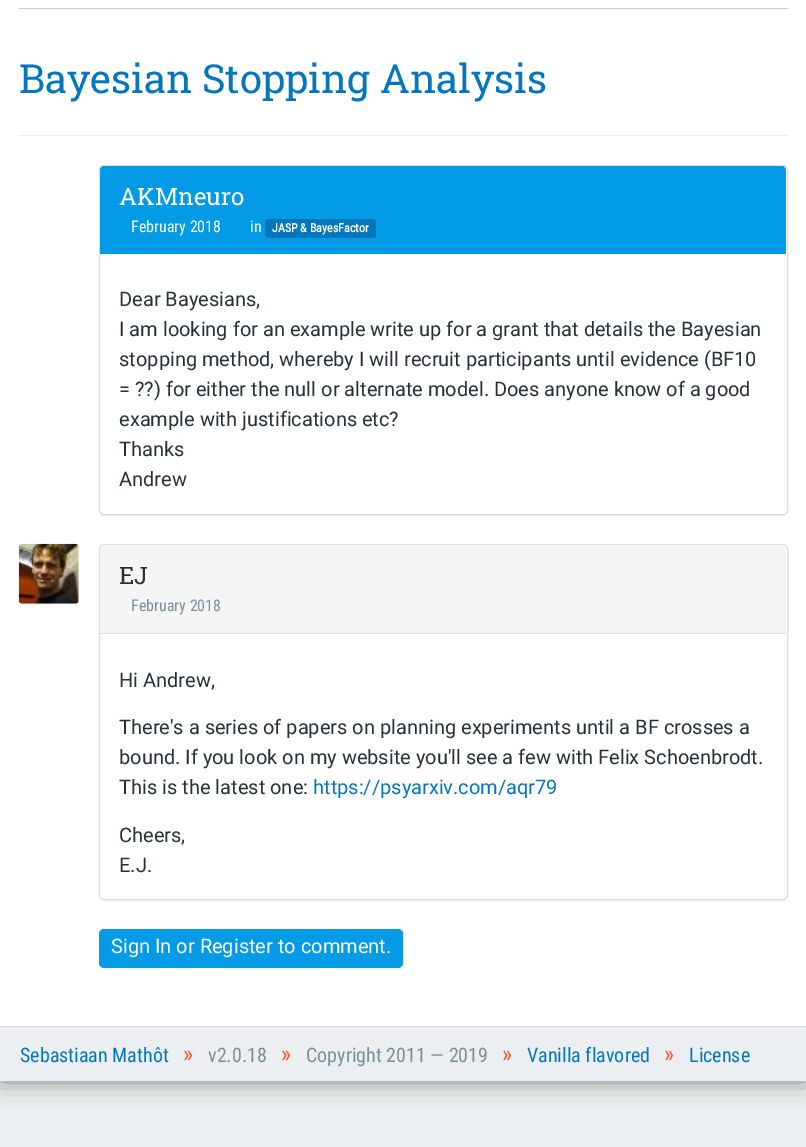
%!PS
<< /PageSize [806 1147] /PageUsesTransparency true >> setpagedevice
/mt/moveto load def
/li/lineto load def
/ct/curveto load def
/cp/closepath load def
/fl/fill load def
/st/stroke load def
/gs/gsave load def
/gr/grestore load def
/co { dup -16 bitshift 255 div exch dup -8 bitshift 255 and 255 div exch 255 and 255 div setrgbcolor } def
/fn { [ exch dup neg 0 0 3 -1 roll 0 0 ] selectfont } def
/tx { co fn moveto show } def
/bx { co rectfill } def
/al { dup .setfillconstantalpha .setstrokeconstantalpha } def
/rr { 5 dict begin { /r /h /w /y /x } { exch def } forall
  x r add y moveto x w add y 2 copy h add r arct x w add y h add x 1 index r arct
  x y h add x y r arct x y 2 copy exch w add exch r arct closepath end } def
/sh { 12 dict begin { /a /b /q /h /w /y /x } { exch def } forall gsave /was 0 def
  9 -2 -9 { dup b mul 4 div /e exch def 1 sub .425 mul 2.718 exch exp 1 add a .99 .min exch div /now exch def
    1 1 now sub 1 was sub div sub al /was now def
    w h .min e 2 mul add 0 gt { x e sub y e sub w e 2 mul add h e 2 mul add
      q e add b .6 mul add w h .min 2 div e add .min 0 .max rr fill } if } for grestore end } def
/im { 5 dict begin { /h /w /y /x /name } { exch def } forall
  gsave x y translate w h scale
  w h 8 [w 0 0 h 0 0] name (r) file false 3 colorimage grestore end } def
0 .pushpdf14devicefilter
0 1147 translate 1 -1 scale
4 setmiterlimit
0 0 806 1147 16#ECEFF1 bx
16#808080 co
0 -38 806 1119 0 12.5 1 sh
0 0 806 1026 16#FFFFFF bx
19 8 769 1 16#CCCCCC bx
19 135 769 1 16#EEEEEE bx
16#000000 co
99 166 689 350 5 .5 .05 sh
16#FFFFFF co
99.5 165.5 688 349 4.5 rr gs fl gr
16#DDDDDD co
st
16#039BE5 co
104 166 mt 782 166 li 784 166 786 168 786 170 ct 786 254 li 100 254 li 100 170 li 100 168 102 166 104 166 ct cp fl
16#0277BD co
265 219 111 19 3 rr fl
16#000000 co
99 545 689 356 5 .5 .05 sh
16#FFFFFF co
99.5 544.5 688 355 4.5 rr gs fl gr
16#DDDDDD co
st
16#F5F5F5 co
104 545 mt 782 545 li 784 545 786 547 786 549 ct 786 634 li 100 634 li 100 549 li 100 547 102 545 104 545 ct cp fl
100 633 686 1 16#DDDDDD bx
(media/1.raw) 18 543 61 61 im
16#039BE5 co
99 929 304 39 5 rr fl
0 1027 806 54 16#ECEFF1 bx
0 1026 806 1 16#CFD8DC bx
(Bayesian Stopping Analysis) 19 93 /RobotoSlab-Regular 40 16#0277BD tx
(AKMneuro) 119 205 /RobotoSlab-Regular 24 16#FFFFFF tx
(February 2018) 131 232 /RobotoCondensed-Regular 16 16#FFFFFF tx
(in) 250 232 /RobotoCondensed-Regular 16 16#FFFFFF tx
(JASP & BayesFactor) 272 232 /RobotoCondensed-Bold 12 16#FFFFFF tx
(Dear Bayesians,) 119 306 /Roboto-Regular 20 16#263238 tx
(I am looking for an example write up for a grant that details the Bayesian) 119 336 /Roboto-Regular 20 16#263238 tx
(stopping method, whereby I will recruit participants until evidence \(BF10) 119 366 /Roboto-Regular 20 16#263238 tx
(= ??\) for either the null or alternate model. Does anyone know of a good) 119 396 /Roboto-Regular 20 16#263238 tx
(example with justifications etc?) 119 426 /Roboto-Regular 20 16#263238 tx
(Thanks) 119 456 /Roboto-Regular 20 16#263238 tx
(Andrew) 119 486 /Roboto-Regular 20 16#263238 tx
(EJ) 119 584 /RobotoSlab-Regular 24 16#263238 tx
(February 2018) 131 611 /RobotoCondensed-Regular 16 16#78909C tx
(Hi Andrew,) 119 687 /Roboto-Regular 20 16#263238 tx
(There's a series of papers on planning experiments until a BF crosses a) 119 734 /Roboto-Regular 20 16#263238 tx
(bound. If you look on my website you'll see a few with Felix Schoenbrodt.) 119 764 /Roboto-Regular 20 16#263238 tx
(This is the latest one:) 119 794 /Roboto-Regular 20 16#263238 tx
(https://psyarxiv.com/aqr79) 313 794 /Roboto-Regular 20 16#0277BD tx
(Cheers,) 119 842 /Roboto-Regular 20 16#263238 tx
(E.J.) 119 872 /Roboto-Regular 20 16#263238 tx
(Sign In or Register to comment.) 111 953 /Roboto-Regular 20 16#FFFFFF tx
(Sebastiaan Mathôt) 20 1062 /RobotoCondensed-Regular 20 16#0277BD tx
(») 183 1062 /RobotoCondensed-Regular 24 16#FF5722 tx
(v2.0.18) 208 1062 /RobotoCondensed-Regular 20 16#78909C tx
(») 281 1062 /RobotoCondensed-Regular 24 16#FF5722 tx
(Copyright 2011 — 2019) 306 1062 /RobotoCondensed-Regular 20 16#78909C tx
(») 502 1062 /RobotoCondensed-Regular 24 16#FF5722 tx
(Vanilla flavored) 527 1062 /RobotoCondensed-Regular 20 16#0277BD tx
(») 664 1062 /RobotoCondensed-Regular 24 16#FF5722 tx
(License) 689 1062 /RobotoCondensed-Regular 20 16#0277BD tx
.poppdf14devicefilter showpage
